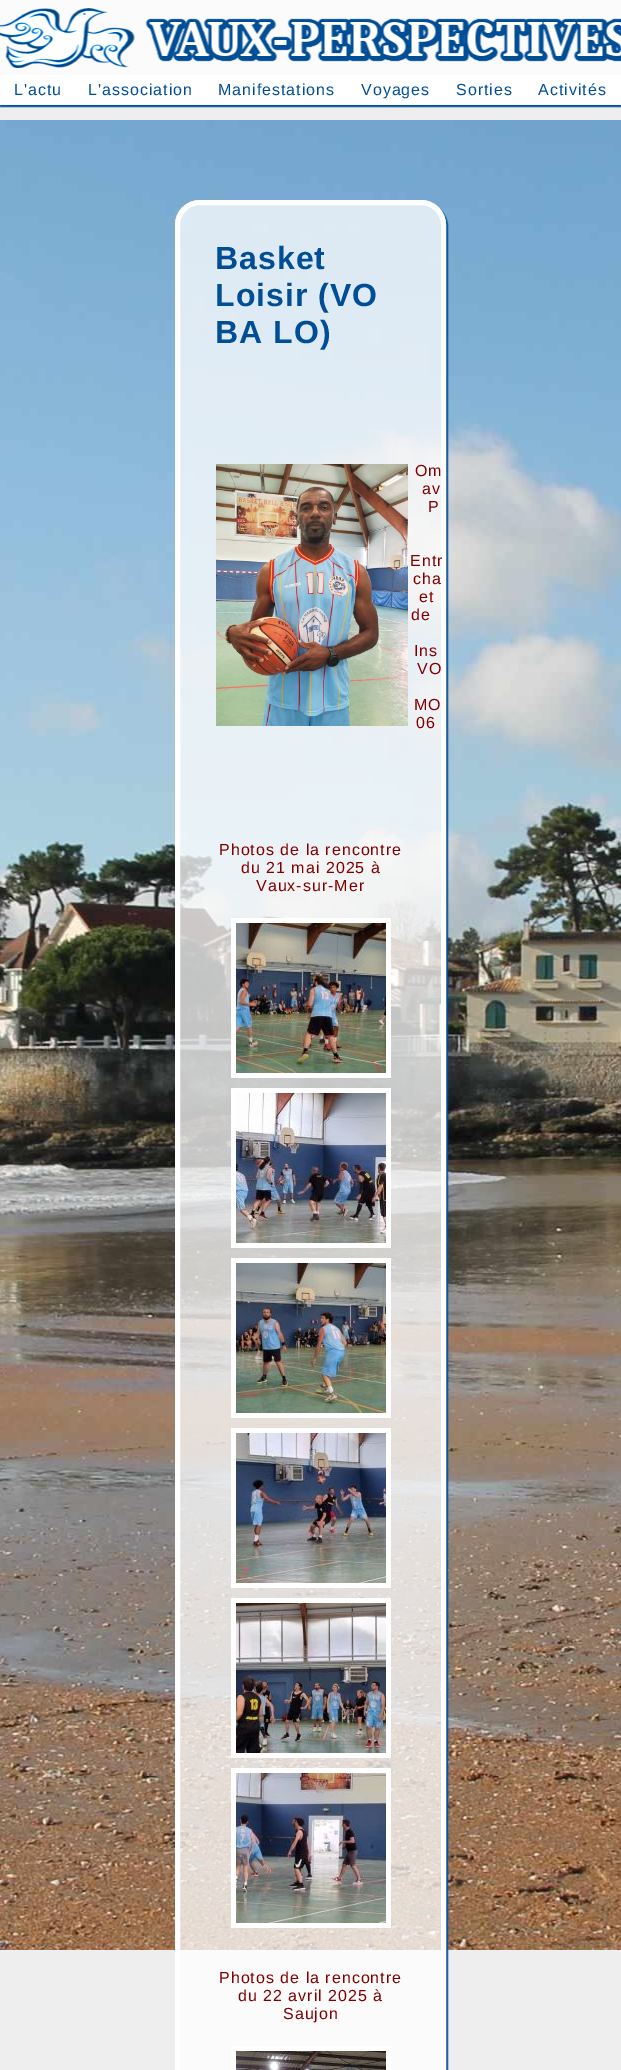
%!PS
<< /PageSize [621 2070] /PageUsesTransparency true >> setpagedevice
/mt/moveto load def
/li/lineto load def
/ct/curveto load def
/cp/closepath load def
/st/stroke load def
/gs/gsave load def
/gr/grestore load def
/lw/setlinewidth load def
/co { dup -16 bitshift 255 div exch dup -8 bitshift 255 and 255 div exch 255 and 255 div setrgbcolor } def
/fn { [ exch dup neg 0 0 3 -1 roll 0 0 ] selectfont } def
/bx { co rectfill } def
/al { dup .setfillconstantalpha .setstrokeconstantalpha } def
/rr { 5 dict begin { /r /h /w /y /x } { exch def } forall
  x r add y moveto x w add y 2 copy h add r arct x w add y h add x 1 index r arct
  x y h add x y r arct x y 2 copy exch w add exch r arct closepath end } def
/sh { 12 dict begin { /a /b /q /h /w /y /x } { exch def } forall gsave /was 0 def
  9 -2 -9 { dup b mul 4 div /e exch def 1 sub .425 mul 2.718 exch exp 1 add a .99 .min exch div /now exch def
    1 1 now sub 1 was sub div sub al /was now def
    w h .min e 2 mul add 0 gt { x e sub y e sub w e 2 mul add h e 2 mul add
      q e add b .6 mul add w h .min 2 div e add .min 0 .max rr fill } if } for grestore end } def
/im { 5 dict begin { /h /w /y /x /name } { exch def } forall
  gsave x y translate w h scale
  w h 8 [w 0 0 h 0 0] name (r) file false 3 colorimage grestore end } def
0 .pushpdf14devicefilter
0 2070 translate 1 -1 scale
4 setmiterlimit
0 0 621 2070 16#EEEEEE bx
(media/1.raw) 0 120 621 1830 im
16#004E96 co
0 2 621 105 0 .5 1 sh
0 0 621 75 16#FBFBFB bx
(media/2.raw) 0 8 621 60 im
0 75 621 30 16#FFFFFF bx
gs
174 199 mt 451 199 li 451 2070 li 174 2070 li cp 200 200 mt 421 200 li 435 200 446 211 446 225 ct 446 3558 li 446 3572 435 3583 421 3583 ct 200 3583 li 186 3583 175 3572 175 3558 ct 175 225 li 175 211 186 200 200 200 ct cp eoclip newpath
16#004E96 co
177 202 271 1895 25 .5 1 sh
gr
(media/3.raw) 175 200 271 1870 im
5 lw
177.5 202.5 266 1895 22.5 rr st
(media/4.raw) 216 464 192 262 im
231 918 160 160 16#FFFFFF bx
(media/5.raw) 236 923 150 150 im
231 1088 160 160 16#FFFFFF bx
(media/6.raw) 236 1093 150 150 im
231 1258 160 160 16#FFFFFF bx
(media/7.raw) 236 1263 150 150 im
231 1428 160 160 16#FFFFFF bx
(media/8.raw) 236 1433 150 150 im
231 1598 160 160 16#FFFFFF bx
(media/9.raw) 236 1603 150 150 im
231 1768 160 160 16#FFFFFF bx
(media/10.raw) 236 1773 150 150 im
231 2046 160 24 16#FFFFFF bx
(media/11.raw) 236 2051 150 19 im
/LiberationSans-Regular 16 fn
16#004E96 co
14 95 mt 1 0 (L'actu) ashow
88 95 mt 1 0 (L'association) ashow
218 95 mt 1 0 (Manifestations) ashow
361 95 mt 1 0 (Voyages) ashow
456 95 mt 1 0 (Sorties) ashow
538 95 mt 1 0 (Activités) ashow
/LiberationSans-Bold 32 fn
215 269 mt 1 0 (Basket) ashow
215 306 mt 1 0 (Loisir \(VO) ashow
215 343 mt 1 0 (BA LO\)) ashow
gs
180 205 261 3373 20 rr clip newpath
/LiberationSans-Regular 16 fn
16#800000 co
415 476 mt 1 0 (Om) ashow
gr
/LiberationSans-Regular 16 fn
16#800000 co
422 494 mt 1 0 (av) ashow
428 512 mt 1 0 (P) ashow
410 566 mt 1 0 (Entr) ashow
413 584 mt 1 0 (cha) ashow
419 602 mt 1 0 (et) ashow
411 620 mt 1 0 (de) ashow
414 656 mt 1 0 (Ins) ashow
417 674 mt 1 0 (VO) ashow
414 710 mt 1 0 (MO) ashow
416 728 mt 1 0 (06) ashow
219 855 mt 1 0 (Photos de la rencontre) ashow
241 873 mt 1 0 (du 21 mai 2025 à) ashow
256 891 mt 1 0 (Vaux-sur-Mer) ashow
219 1983 mt 1 0 (Photos de la rencontre) ashow
238 2001 mt 1 0 (du 22 avril 2025 à) ashow
283 2019 mt 1 0 (Saujon) ashow
.poppdf14devicefilter showpage
